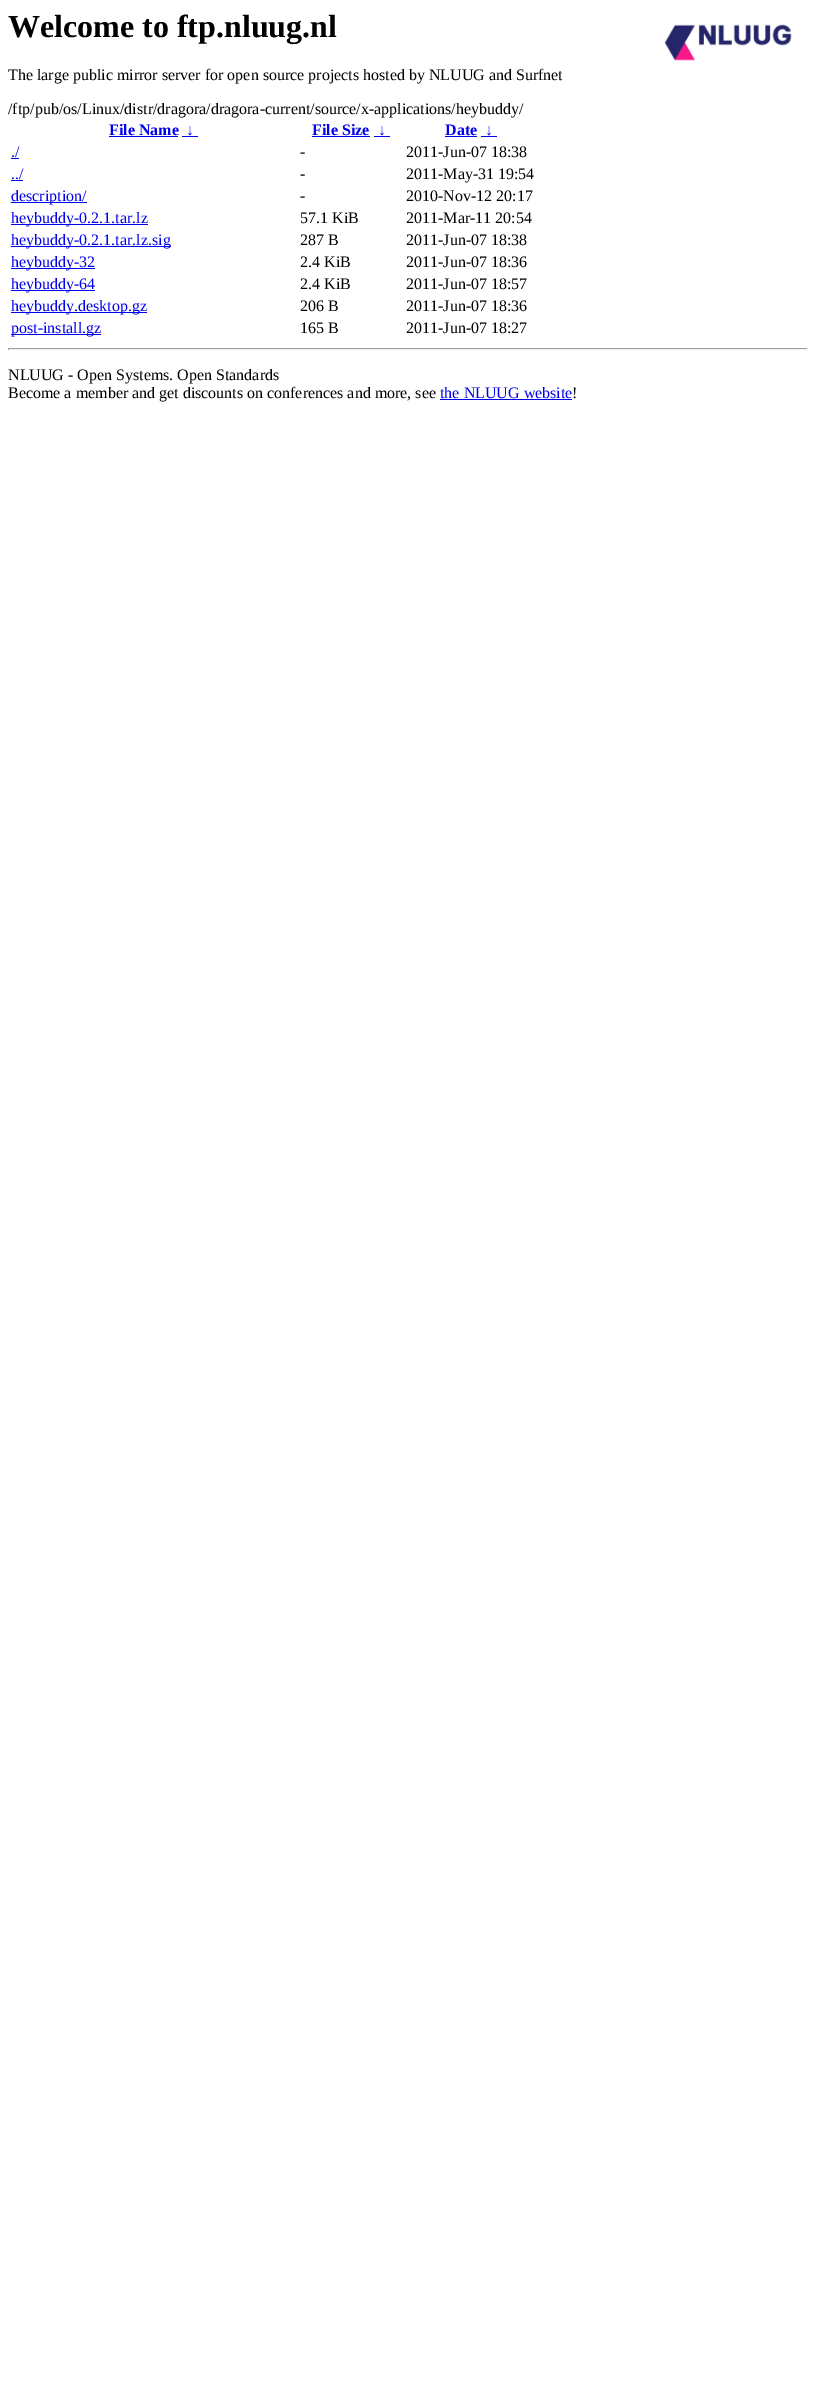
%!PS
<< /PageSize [816 2400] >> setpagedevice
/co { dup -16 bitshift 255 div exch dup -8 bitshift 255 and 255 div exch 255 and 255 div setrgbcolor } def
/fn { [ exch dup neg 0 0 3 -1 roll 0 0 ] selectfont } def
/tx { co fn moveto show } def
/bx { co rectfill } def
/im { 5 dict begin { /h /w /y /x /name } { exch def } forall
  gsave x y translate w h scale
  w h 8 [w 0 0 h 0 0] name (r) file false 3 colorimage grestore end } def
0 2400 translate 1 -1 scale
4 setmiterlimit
0 0 816 2400 16#FFFFFF bx
(media/1.raw) 664 24 128 37 im
109 136 69 1 16#0000EE bx
182 136 16 1 16#0000EE bx
312 136 58 1 16#0000EE bx
374 136 16 1 16#0000EE bx
445 136 32 1 16#0000EE bx
481 136 16 1 16#0000EE bx
11 158 8 1 16#0000EE bx
11 180 12 1 16#0000EE bx
11 202 76 1 16#0000EE bx
11 224 137 1 16#0000EE bx
11 246 160 1 16#0000EE bx
11 268 84 1 16#0000EE bx
11 290 84 1 16#0000EE bx
11 312 136 1 16#0000EE bx
11 334 90 1 16#0000EE bx
8 348 800 1 16#9F9F9F bx
807 348 1 2 16#EEEEEE bx
8 349 800 1 16#EEEEEE bx
8 348 1 2 16#9F9F9F bx
440 399 132 1 16#0000EE bx
(Welcome to ftp.nluug.nl) 8 37 /LiberationSerif-Bold 32 16#000000 tx
(The large public mirror server for open source projects hosted by NLUUG and Surfnet) 8 80 /LiberationSerif-Regular 16 16#000000 tx
(/ftp/pub/os/Linux/distr/dragora/dragora-current/source/x-applications/heybuddy/) 8 114 /LiberationSerif-Regular 16 16#000000 tx
(File Name) 109 135 /LiberationSerif-Bold 16 16#0000EE tx
(↓) 186 135 /LiberationSerif-Bold 16 16#0000EE tx
(File Size) 312 135 /LiberationSerif-Bold 16 16#0000EE tx
(↓) 378 135 /LiberationSerif-Bold 16 16#0000EE tx
(Date) 445 135 /LiberationSerif-Bold 16 16#0000EE tx
(↓) 485 135 /LiberationSerif-Bold 16 16#0000EE tx
(./) 11 157 /LiberationSerif-Regular 16 16#0000EE tx
(-) 300 157 /LiberationSerif-Regular 16 16#000000 tx
(2011-Jun-07 18:38) 406 157 /LiberationSerif-Regular 16 16#000000 tx
(../) 11 179 /LiberationSerif-Regular 16 16#0000EE tx
(-) 300 179 /LiberationSerif-Regular 16 16#000000 tx
(2011-May-31 19:54) 406 179 /LiberationSerif-Regular 16 16#000000 tx
(description/) 11 201 /LiberationSerif-Regular 16 16#0000EE tx
(-) 300 201 /LiberationSerif-Regular 16 16#000000 tx
(2010-Nov-12 20:17) 406 201 /LiberationSerif-Regular 16 16#000000 tx
(heybuddy-0.2.1.tar.lz) 11 223 /LiberationSerif-Regular 16 16#0000EE tx
(57.1 KiB) 300 223 /LiberationSerif-Regular 16 16#000000 tx
(2011-Mar-11 20:54) 406 223 /LiberationSerif-Regular 16 16#000000 tx
(heybuddy-0.2.1.tar.lz.sig) 11 245 /LiberationSerif-Regular 16 16#0000EE tx
(287 B) 300 245 /LiberationSerif-Regular 16 16#000000 tx
(2011-Jun-07 18:38) 406 245 /LiberationSerif-Regular 16 16#000000 tx
(heybuddy-32) 11 267 /LiberationSerif-Regular 16 16#0000EE tx
(2.4 KiB) 300 267 /LiberationSerif-Regular 16 16#000000 tx
(2011-Jun-07 18:36) 406 267 /LiberationSerif-Regular 16 16#000000 tx
(heybuddy-64) 11 289 /LiberationSerif-Regular 16 16#0000EE tx
(2.4 KiB) 300 289 /LiberationSerif-Regular 16 16#000000 tx
(2011-Jun-07 18:57) 406 289 /LiberationSerif-Regular 16 16#000000 tx
(heybuddy.desktop.gz) 11 311 /LiberationSerif-Regular 16 16#0000EE tx
(206 B) 300 311 /LiberationSerif-Regular 16 16#000000 tx
(2011-Jun-07 18:36) 406 311 /LiberationSerif-Regular 16 16#000000 tx
(post-install.gz) 11 333 /LiberationSerif-Regular 16 16#0000EE tx
(165 B) 300 333 /LiberationSerif-Regular 16 16#000000 tx
(2011-Jun-07 18:27) 406 333 /LiberationSerif-Regular 16 16#000000 tx
(NLUUG - Open Systems. Open Standards) 8 380 /LiberationSerif-Regular 16 16#000000 tx
(Become a member and get discounts on conferences and more, see) 8 398 /LiberationSerif-Regular 16 16#000000 tx
(the NLUUG website) 440 398 /LiberationSerif-Regular 16 16#0000EE tx
(!) 572 398 /LiberationSerif-Regular 16 16#000000 tx
showpage
